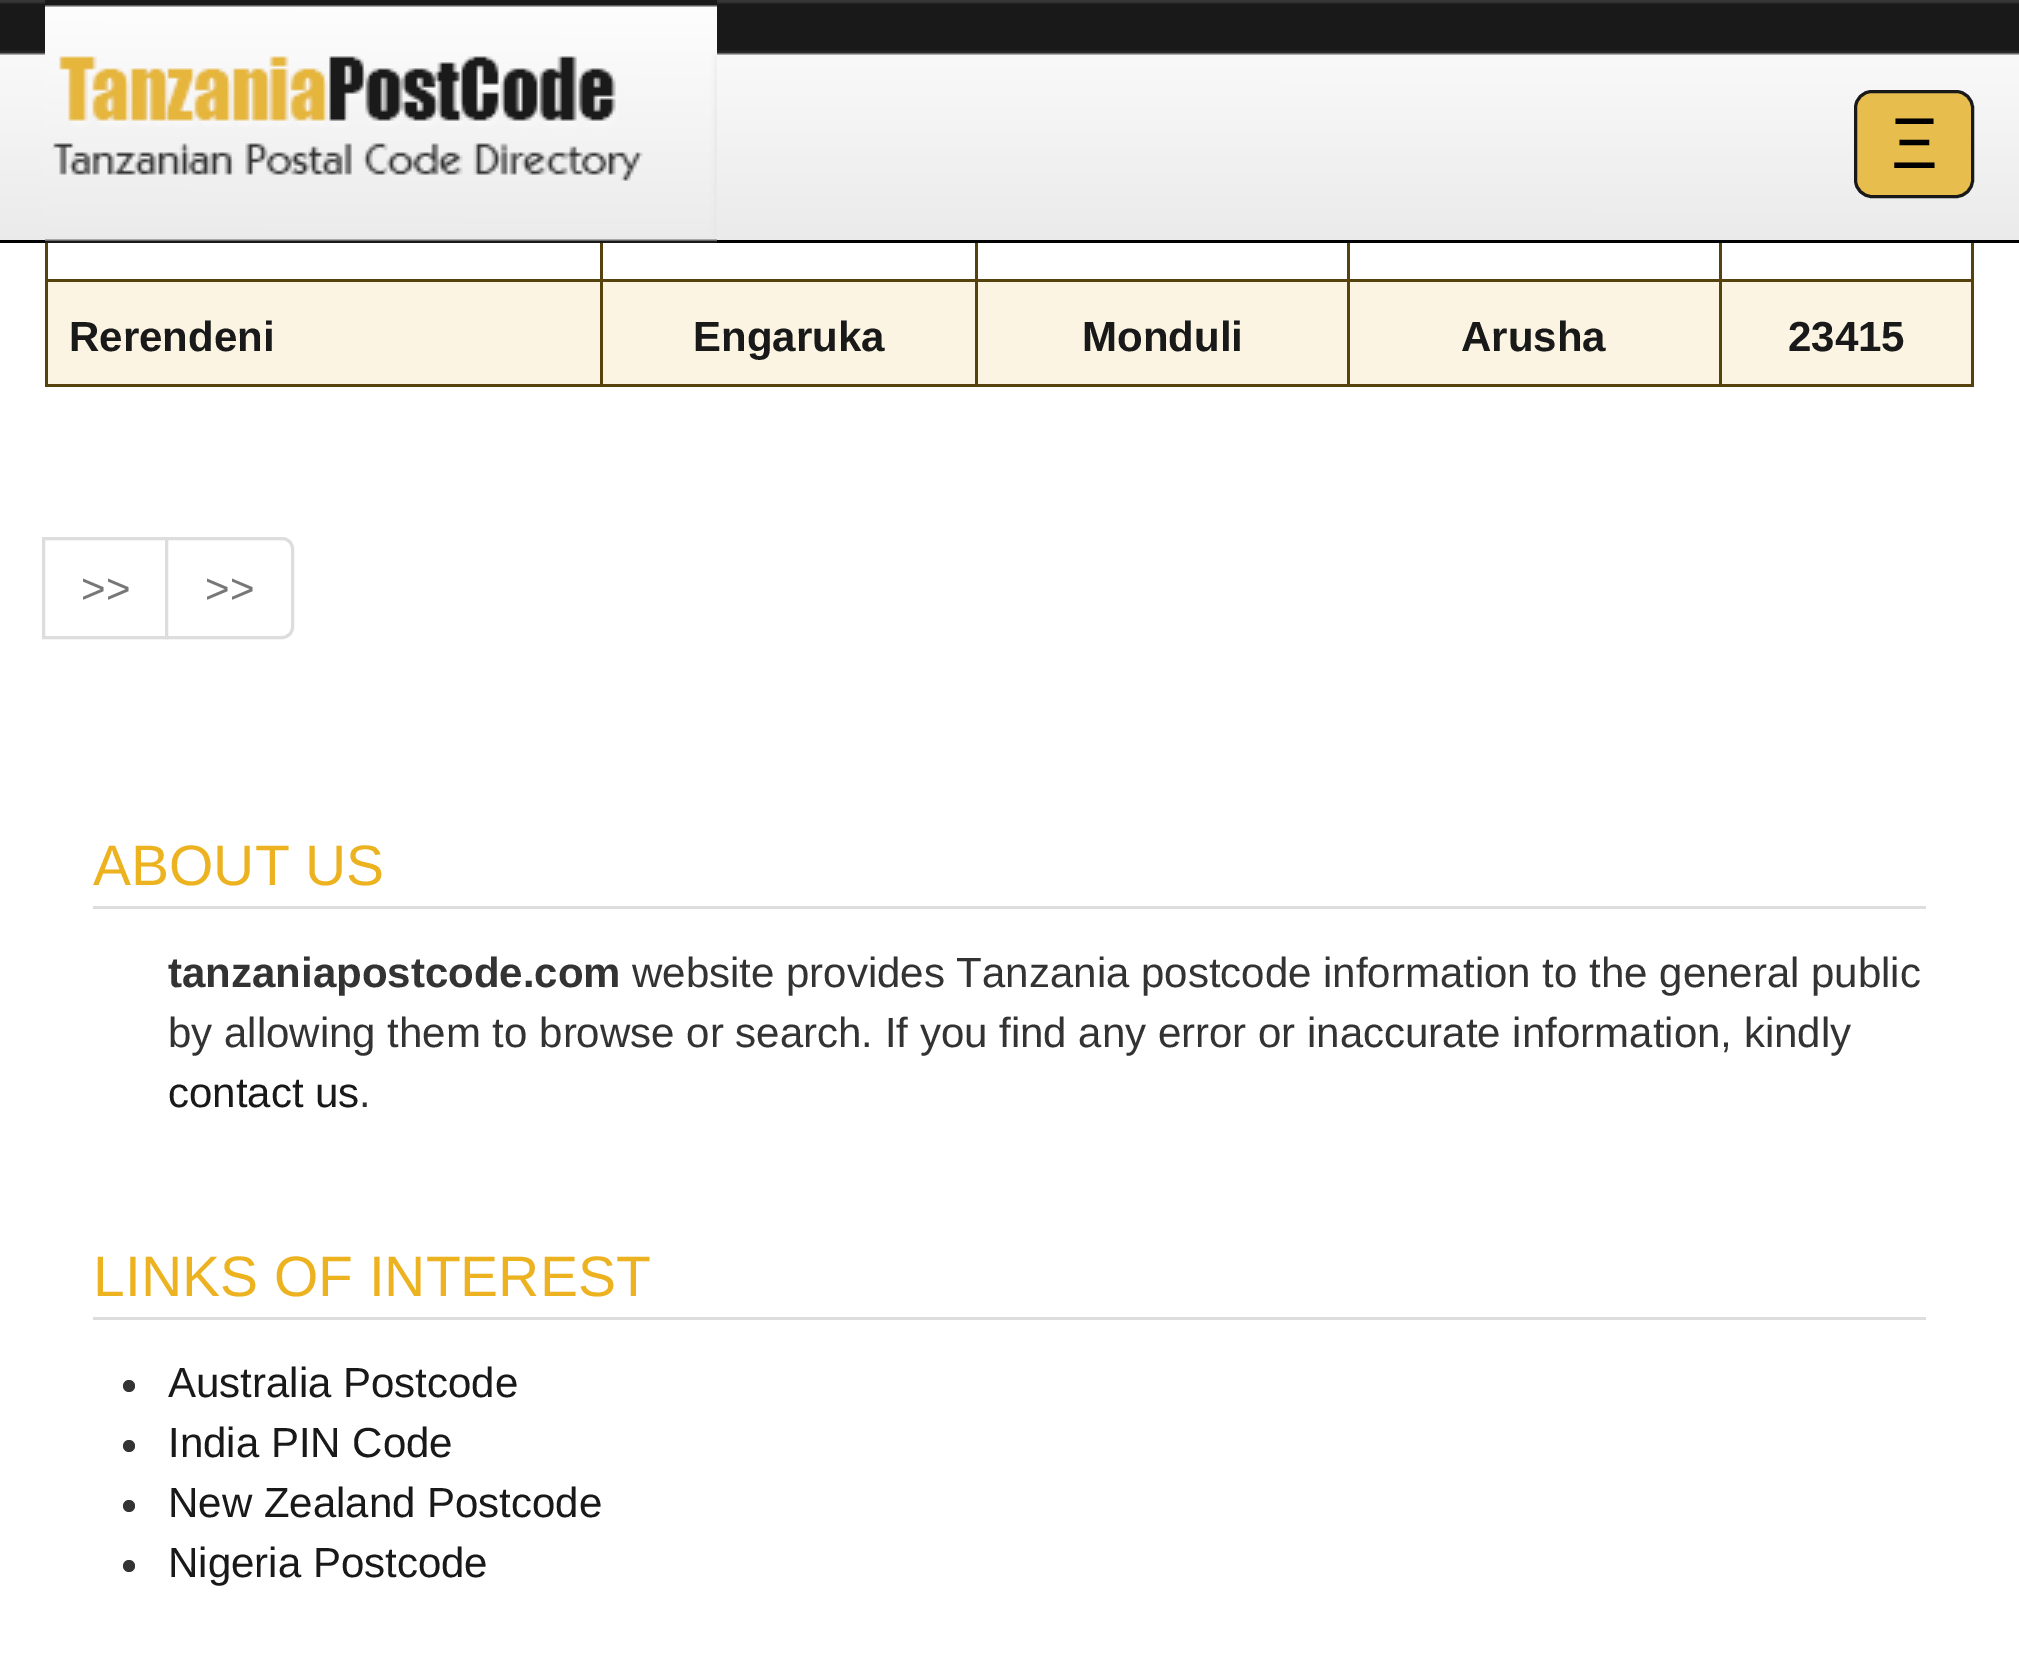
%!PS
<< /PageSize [2019 1677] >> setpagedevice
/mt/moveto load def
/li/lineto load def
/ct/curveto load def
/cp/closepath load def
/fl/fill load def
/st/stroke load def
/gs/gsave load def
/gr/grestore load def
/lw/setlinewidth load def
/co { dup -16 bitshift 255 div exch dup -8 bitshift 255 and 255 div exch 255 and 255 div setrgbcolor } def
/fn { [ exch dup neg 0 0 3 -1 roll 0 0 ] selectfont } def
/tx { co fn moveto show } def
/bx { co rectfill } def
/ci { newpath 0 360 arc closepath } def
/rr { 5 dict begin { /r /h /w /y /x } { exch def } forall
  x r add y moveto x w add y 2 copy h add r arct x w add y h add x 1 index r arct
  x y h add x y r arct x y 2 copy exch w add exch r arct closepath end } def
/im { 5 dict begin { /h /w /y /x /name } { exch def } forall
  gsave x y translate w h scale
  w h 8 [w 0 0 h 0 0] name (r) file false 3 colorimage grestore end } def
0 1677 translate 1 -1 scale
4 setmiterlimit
0 0 2019 1677 16#FFFFFF bx
(media/1.raw) 0 0 2019 240 im
0 240 2019 3 16#000000 bx
(media/2.raw) 45 0 672 243 im
16#E7BD4D co
1855.5 91.5 117 105 16.5 rr gs fl gr
16#191919 co
3 lw
st
1719 279 255 3 16#56420C bx
48 282 1923 102 16#FBF4E3 bx
1971 243 3 144 16#56420C bx
1719 384 255 3 16#56420C bx
1719 279 3 108 16#56420C bx
1347 279 375 3 16#56420C bx
1347 384 375 3 16#56420C bx
1347 279 3 108 16#56420C bx
975 279 375 3 16#56420C bx
975 384 375 3 16#56420C bx
975 279 3 108 16#56420C bx
600 279 378 3 16#56420C bx
600 384 378 3 16#56420C bx
600 279 3 108 16#56420C bx
45 279 558 3 16#56420C bx
600 243 3 39 16#56420C bx
975 243 3 39 16#56420C bx
1347 243 3 39 16#56420C bx
1719 243 3 39 16#56420C bx
45 384 558 3 16#56420C bx
45 243 3 144 16#56420C bx
16#DDDDDD co
43.5 538.5 123 99 rectstroke
16#FFFFFF co
166.5 538.5 mt 282 538.5 li 288 538.5 292.5 543 292.5 549 ct 292.5 627 li 292.5 633 288 637.5 282 637.5 ct 166.5 637.5 li cp gs fl gr
16#DDDDDD co
st
93 906 1833 3 16#DDDDDD bx
93 1317 1833 3 16#DDDDDD bx
16#333333 co
129 1386 6 ci fl
129 1446 6 ci fl
129 1506 6 ci fl
129 1566 6 ci fl
(Ξ) 1891 168 /LiberationSans-Regular 72 16#000000 tx
(Rerendeni) 69 351 /LiberationSans-Bold 42 16#191919 tx
(Engaruka) 693 351 /LiberationSans-Bold 42 16#191919 tx
(Monduli) 1082 351 /LiberationSans-Bold 42 16#191919 tx
(Arusha) 1461 351 /LiberationSans-Bold 42 16#191919 tx
(23415) 1788 351 /LiberationSans-Bold 42 16#191919 tx
(>>) 81 603 /LiberationSans-Regular 42 16#777777 tx
(>>) 205 603 /LiberationSans-Regular 42 16#777777 tx
(ABOUT US) 93 885 /LiberationSans-Regular 57 16#ECB220 tx
(tanzaniapostcode.com) 168 987 /LiberationSans-Bold 42 16#333333 tx
(website provides Tanzania postcode information to the general public) 632 987 /LiberationSans-Regular 42 16#333333 tx
(by allowing them to browse or search. If you find any error or inaccurate information, kindly) 168 1047 /LiberationSans-Regular 42 16#333333 tx
(contact us) 168 1107 /LiberationSans-Regular 42 16#191919 tx
(.) 359 1107 /LiberationSans-Regular 42 16#333333 tx
(LINKS OF INTEREST) 93 1296 /LiberationSans-Regular 57 16#ECB220 tx
(Australia Postcode) 168 1397 /LiberationSans-Regular 42 16#191919 tx
(India PIN Code) 168 1457 /LiberationSans-Regular 42 16#191919 tx
(New Zealand Postcode) 168 1517 /LiberationSans-Regular 42 16#191919 tx
(Nigeria Postcode) 168 1577 /LiberationSans-Regular 42 16#191919 tx
showpage
